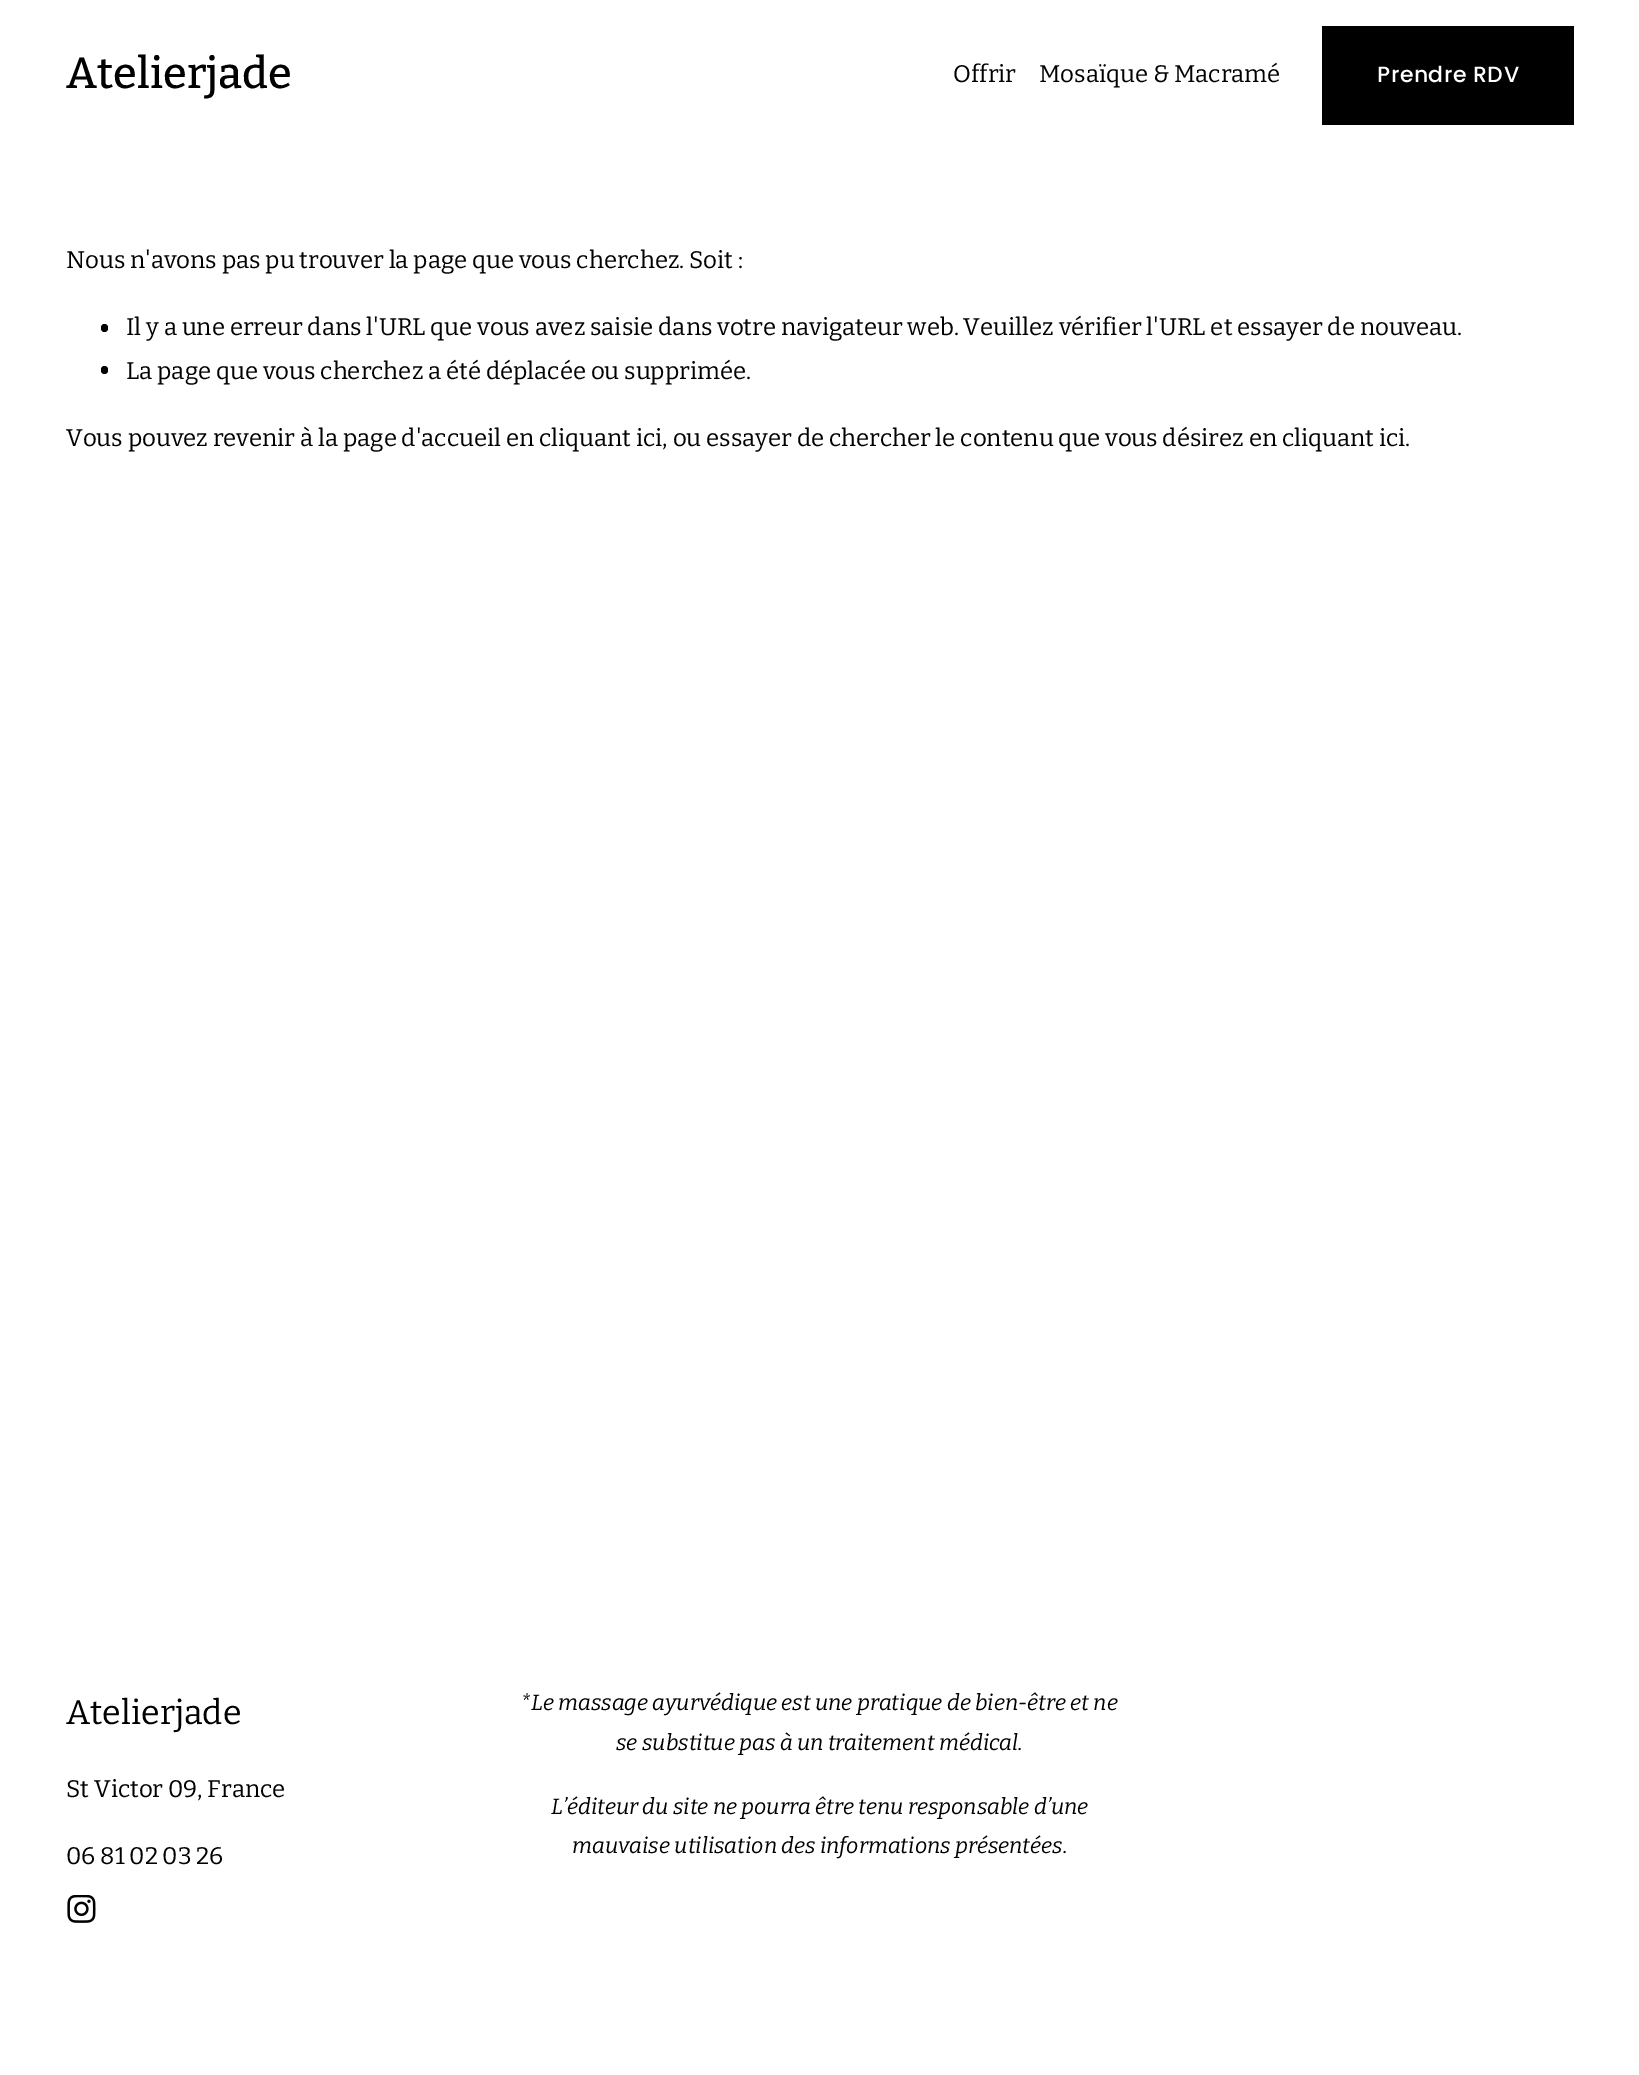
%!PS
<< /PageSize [1639 2075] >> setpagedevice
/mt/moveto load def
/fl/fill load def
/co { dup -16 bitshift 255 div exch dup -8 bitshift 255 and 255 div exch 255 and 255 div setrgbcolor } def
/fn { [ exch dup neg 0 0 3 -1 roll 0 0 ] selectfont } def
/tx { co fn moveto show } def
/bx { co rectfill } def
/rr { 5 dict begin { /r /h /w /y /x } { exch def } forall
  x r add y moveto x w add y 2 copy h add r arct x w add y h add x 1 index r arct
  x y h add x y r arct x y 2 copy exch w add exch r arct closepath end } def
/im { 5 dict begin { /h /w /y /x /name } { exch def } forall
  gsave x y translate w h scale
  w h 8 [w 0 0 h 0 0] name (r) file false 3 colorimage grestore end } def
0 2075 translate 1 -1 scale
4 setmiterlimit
0 0 1639 2075 16#FFFFFF bx
1322 26 252 99 16#000000 bx
101 324 7 8 3.5 rr fl
101 366 7 8 3.5 rr fl
(media/1.raw) 67 1895 29 28 im
(Atelierjade) 66 88 /Bitter-Medium 43.5 16#000000 tx
(Offrir) 953 82 /Bitter-Regular 24 16#000000 tx
(Mosaïque & Macramé) 1039 82 /Bitter-Regular 24 16#000000 tx
/Poppins-Medium 22 fn
16#FFFFFF co
1377 82 mt .5 0 (Prendre RDV) ashow
(Nous n'avons pas pu trouver la page que vous cherchez. Soit :) 66 268 /Bitter-Regular 24 16#000000 tx
(Il y a une erreur dans l'URL que vous avez saisie dans votre navigateur web. Veuillez vérifier l'URL et essayer de nouveau.) 126 335 /Bitter-Regular 24 16#000000 tx
(La page que vous cherchez a été déplacée ou supprimée.) 126 379 /Bitter-Regular 24 16#000000 tx
(Vous pouvez revenir à la page d'accueil en cliquant ici, ou essayer de chercher le contenu que vous désirez en cliquant ici.) 66 446 /Bitter-Regular 24 16#000000 tx
(Atelierjade) 66 1724 /Bitter-Regular 34 16#000000 tx
(St Victor 09, France) 66 1797 /Bitter-Regular 24 16#000000 tx
(06 81 02 03 26) 66 1864 /Bitter-Regular 24 16#000000 tx
(*Le massage ayurvédique est une pratique de bien-être et ne) 521 1710 /Bitter-Italic 22 16#000000 tx
(se substitue pas à un traitement médical.) 616 1750 /Bitter-Italic 22 16#000000 tx
(L’éditeur du site ne pourra être tenu responsable d’une) 551 1814 /Bitter-Italic 22 16#000000 tx
(mauvaise utilisation des informations présentées.) 572 1853 /Bitter-Italic 22 16#000000 tx
showpage
